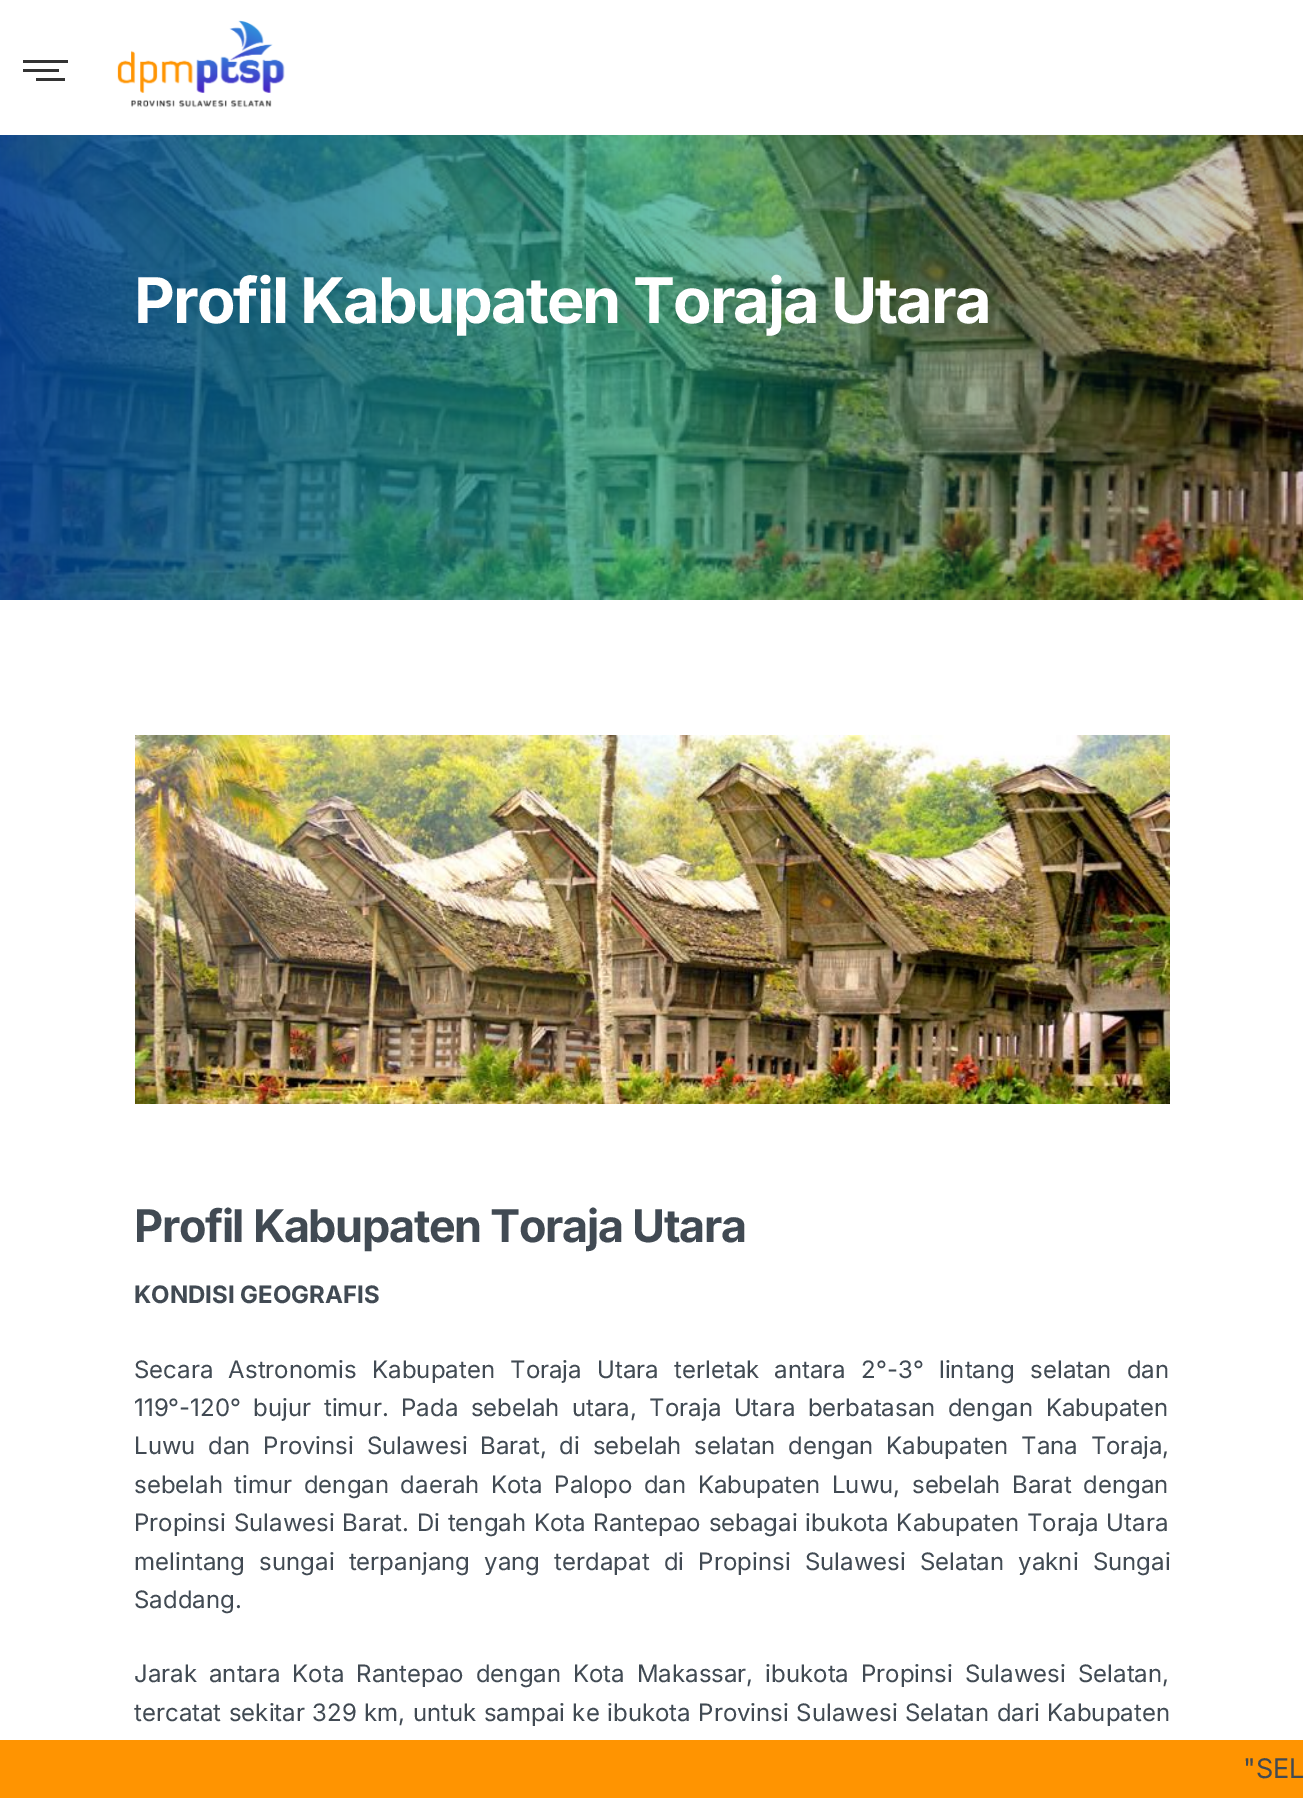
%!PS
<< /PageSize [1303 1798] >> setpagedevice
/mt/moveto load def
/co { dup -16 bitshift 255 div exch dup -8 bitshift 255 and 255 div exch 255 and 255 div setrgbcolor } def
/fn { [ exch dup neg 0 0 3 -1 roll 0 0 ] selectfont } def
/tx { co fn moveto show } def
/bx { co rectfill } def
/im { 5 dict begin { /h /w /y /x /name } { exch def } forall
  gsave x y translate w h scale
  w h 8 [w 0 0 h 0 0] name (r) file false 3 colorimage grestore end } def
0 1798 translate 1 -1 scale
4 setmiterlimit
0 0 1303 1798 16#FFFFFF bx
23 69 36 3 16#333333 bx
23 60 45 3 16#333333 bx
36 78 29 3 16#333333 bx
(media/1.raw) 117 20 168 88 im
(media/2.raw) 0 135 1303 465 im
(media/3.raw) 135 735 1035 369 im
0 1740 1303 58 16#FF9401 bx
/Inter-Bold 63 fn
16#FFFFFF co
134 323 mt -1.9 0 (Profil Kabupaten Toraja Utara) ashow
/Inter-Bold 45 fn
16#414A53 co
134 1242 mt -1.35 0 (Profil Kabupaten Toraja Utara) ashow
(KONDISI GEOGRAFIS) 134 1303 /Inter-Bold 24 16#414A53 tx
/Inter-Regular 24 fn
134 1378 mt 8.5 0 32 (Secara Astronomis Kabupaten Toraja Utara terletak antara 2°-3° lintang selatan dan) widthshow
134 1416 mt 5.75 0 32 (119°-120° bujur timur. Pada sebelah utara, Toraja Utara berbatasan dengan Kabupaten) widthshow
134 1454 mt 5.9 0 32 (Luwu dan Provinsi Sulawesi Barat, di sebelah selatan dengan Kabupaten Tana Toraja,) widthshow
134 1493 mt 4.75 0 32 (sebelah timur dengan daerah Kota Palopo dan Kabupaten Luwu, sebelah Barat dengan) widthshow
134 1531 mt 1 0 32 (Propinsi Sulawesi Barat. Di tengah Kota Rantepao sebagai ibukota Kabupaten Toraja Utara) widthshow
134 1570 mt 7.5 0 32 (melintang sungai terpanjang yang terdapat di Propinsi Sulawesi Selatan yakni Sungai) widthshow
(Saddang.) 134 1608 /Inter-Regular 24 16#414A53 tx
134 1682 mt 5.25 0 32 (Jarak antara Kota Rantepao dengan Kota Makassar, ibukota Propinsi Sulawesi Selatan,) widthshow
134 1721 mt .75 0 32 (tercatat sekitar 329 km, untuk sampai ke ibukota Provinsi Sulawesi Selatan dari Kabupaten) widthshow
("SEL) 1243 1778 /Inter-Regular 27 16#414A53 tx
showpage
